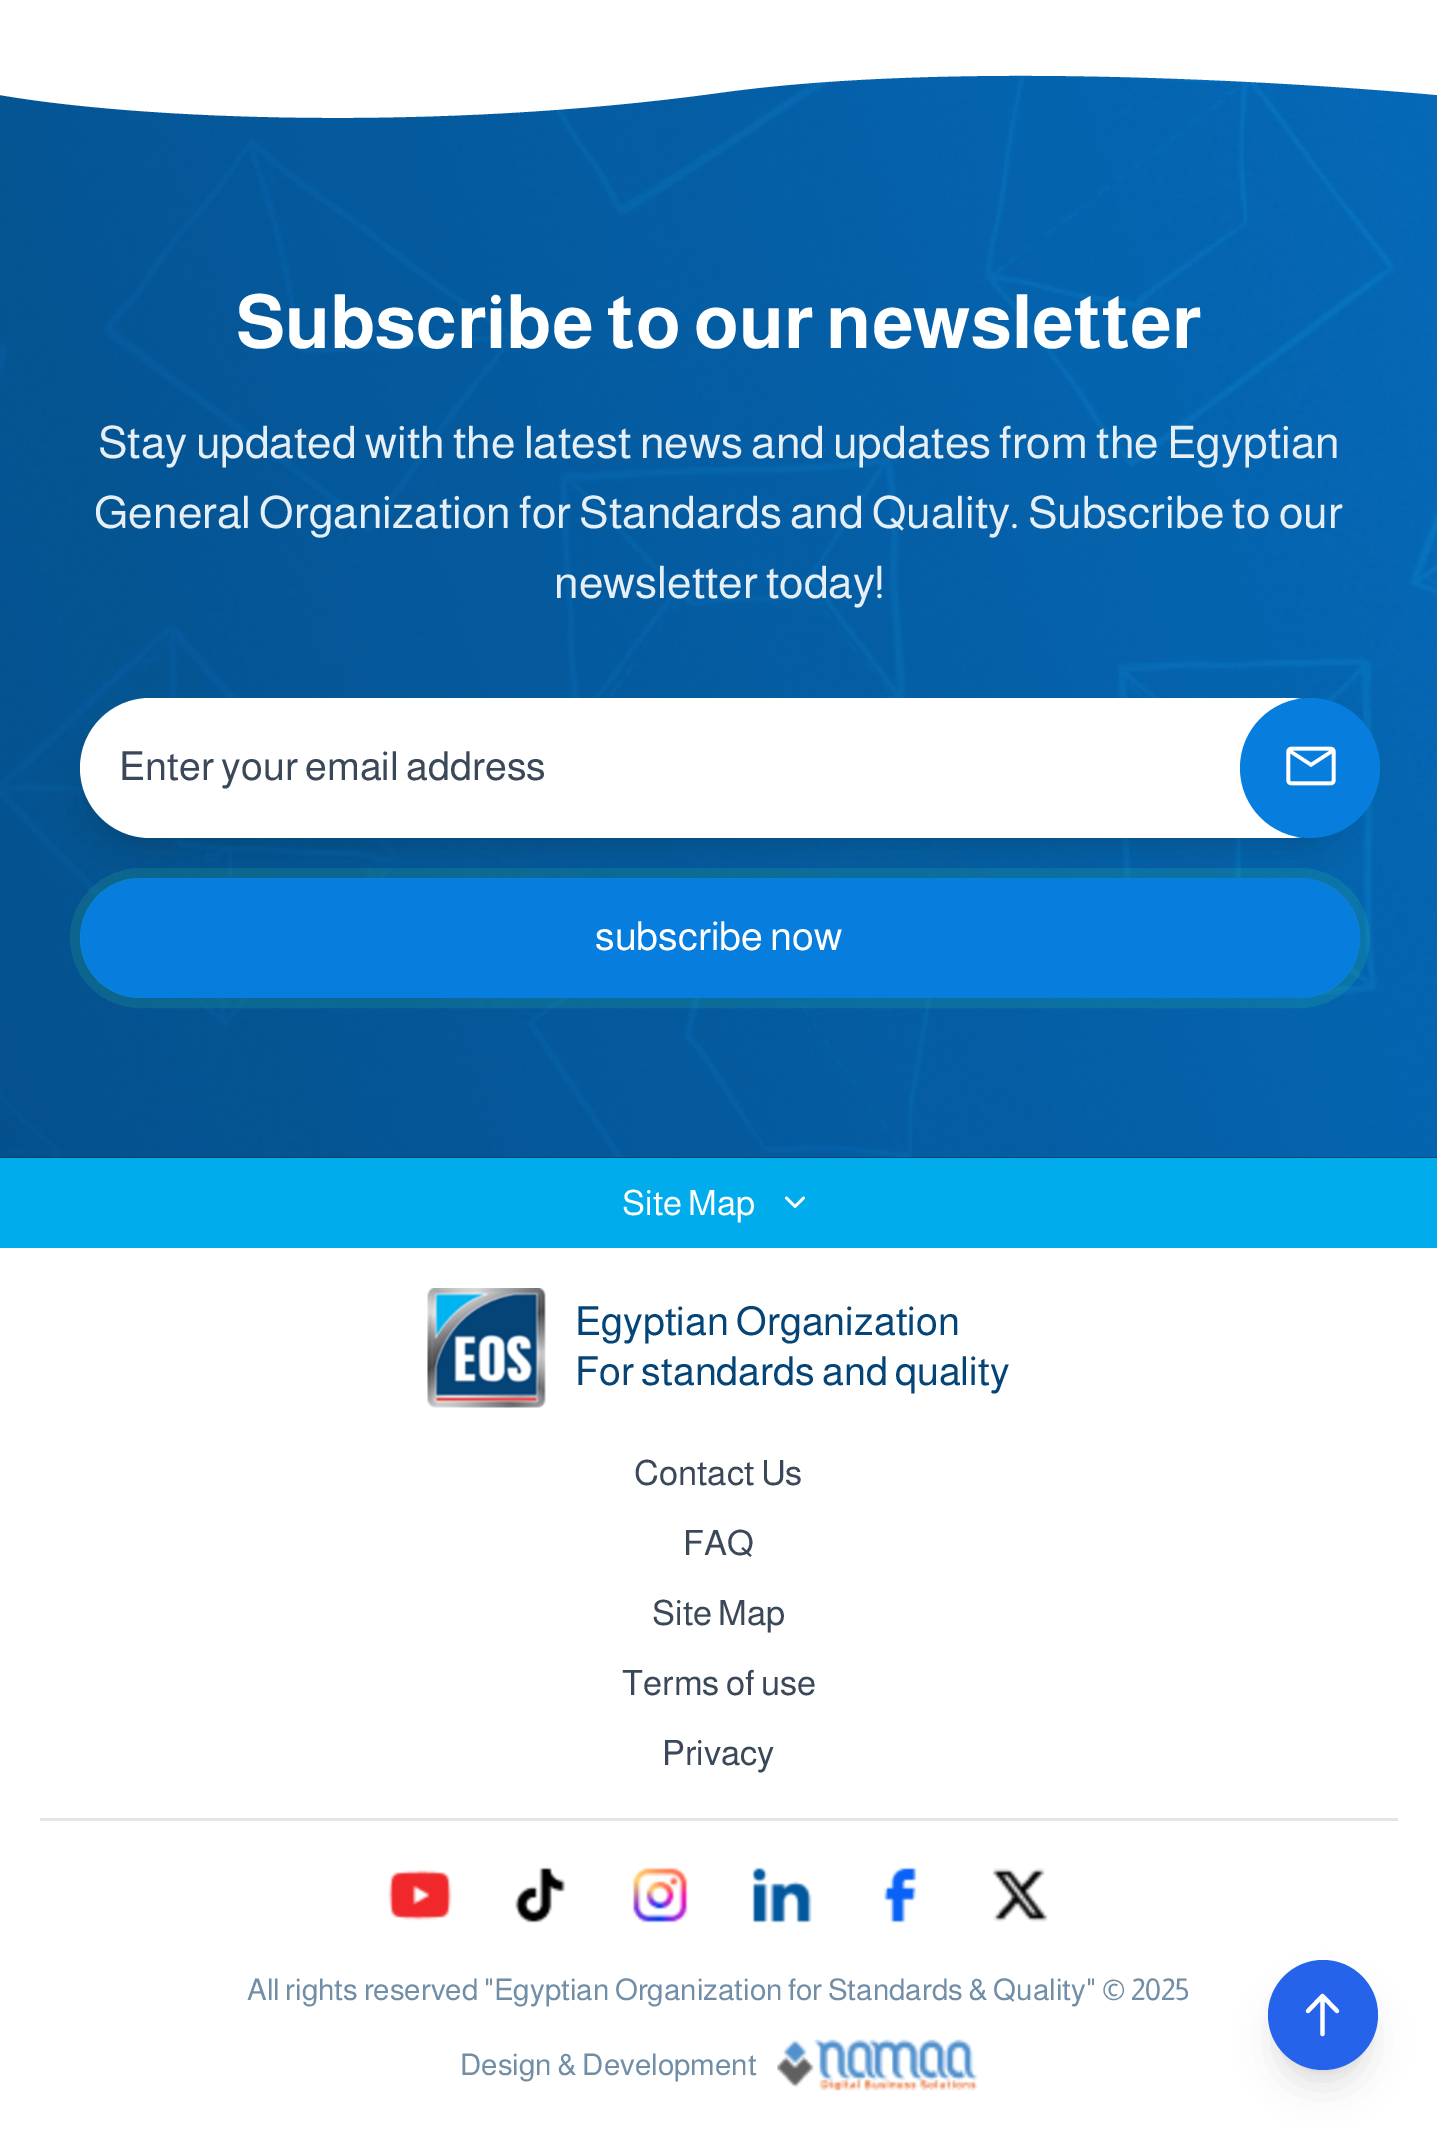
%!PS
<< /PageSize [1437 2129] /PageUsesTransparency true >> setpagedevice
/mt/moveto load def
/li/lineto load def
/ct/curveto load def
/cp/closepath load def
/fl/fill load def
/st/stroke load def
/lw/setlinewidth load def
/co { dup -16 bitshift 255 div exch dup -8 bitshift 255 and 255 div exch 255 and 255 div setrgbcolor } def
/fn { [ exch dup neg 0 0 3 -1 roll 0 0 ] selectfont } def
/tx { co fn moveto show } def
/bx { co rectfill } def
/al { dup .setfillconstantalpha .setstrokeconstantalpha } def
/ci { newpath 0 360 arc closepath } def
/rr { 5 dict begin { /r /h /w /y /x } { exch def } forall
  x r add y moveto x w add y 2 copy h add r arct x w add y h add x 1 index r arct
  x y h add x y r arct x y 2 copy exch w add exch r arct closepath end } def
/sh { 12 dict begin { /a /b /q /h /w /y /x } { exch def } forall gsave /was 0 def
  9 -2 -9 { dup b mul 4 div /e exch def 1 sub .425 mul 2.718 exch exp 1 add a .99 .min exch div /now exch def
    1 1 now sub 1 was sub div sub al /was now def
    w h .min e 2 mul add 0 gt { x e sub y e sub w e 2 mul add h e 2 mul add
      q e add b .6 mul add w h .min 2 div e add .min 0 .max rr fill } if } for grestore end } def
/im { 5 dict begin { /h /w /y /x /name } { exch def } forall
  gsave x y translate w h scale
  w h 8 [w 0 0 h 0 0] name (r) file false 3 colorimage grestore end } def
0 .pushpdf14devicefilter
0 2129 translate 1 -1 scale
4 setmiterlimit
0 0 1437 2129 16#FFFFFF bx
0 1157 1437 1 16#1F2937 bx
(media/1.raw) 0 75 1437 1083 im
16#FFFFFF co
1437 95 mt 1437 95 1003 53 718 93 ct 433 132 138 119 0 95 ct 0 70 li 1437 70 li cp fl
16#000000 co
90 718 1260 120 60 7.5 .1 sh
16#077EDD co
80 878 1280 120 60 rr fl
0.14 al
16#38D98B co
10 lw
75 873 1290 130 65 rr st
1 al
16#000000 co
88 730 1265 125 62.5 19 .1 sh
16#FFFFFF co
80 698 1280 140 70 rr fl
16#077EDD co
1310 768 70 ci fl
(media/2.raw) 1286 746 50 40 im
0 1158 1437 90 16#01ACEC bx
(media/3.raw) 785 1196 20 12 im
(media/4.raw) 427 1288 119 120 im
40 1818 1358 3 16#E5E5E5 bx
(media/5.raw) 388 1870 64 51 im
(media/6.raw) 515 1867 51 56 im
(media/7.raw) 632 1867 56 56 im
(media/8.raw) 752 1867 60 56 im
(media/9.raw) 883 1867 34 56 im
(media/10.raw) 992 1868 56 54 im
(media/11.raw) 777 2039 201 52 im
16#000000 co
1278 1980 90 90 45 7.5 .1 sh
1275 1993 95 95 47.5 19 .1 sh
16#2563EB co
1323 2015 55 ci fl
16#FFFFFF co
4.2 lw
1 setlinecap
1 setlinejoin
1308 2011 mt 1322.5 1996 li 1322.5 1996 mt 1337 2011 li 1322.5 1996 mt 1322.5 2034 li st
(Subscribe to our newsletter) 236 348 /Almarai-Bold 75 16#FFFFFF tx
(Stay updated with the latest news and updates from the Egyptian) 98 458 /Almarai-Regular 45 16#E6EFF6 tx
(General Organization for Standards and Quality. Subscribe to our) 94 528 /Almarai-Regular 45 16#E6EFF6 tx
(newsletter today!) 554 598 /Almarai-Regular 45 16#E6EFF6 tx
(Enter your email address) 119 780 /Almarai-Regular 40 16#3B4859 tx
(subscribe now) 595 950 /Almarai-Regular 40 16#FFFFFF tx
(Site Map) 622 1215 /Almarai-Regular 35 16#FFFFFF tx
(Egyptian Organization) 575 1335 /Almarai-Regular 40 16#044477 tx
(For standards and quality) 575 1385 /Almarai-Regular 40 16#044477 tx
(Contact Us) 634 1485 /Almarai-Regular 35 16#3B4859 tx
(FAQ) 683 1555 /Almarai-Regular 35 16#3B4859 tx
(Site Map) 652 1625 /Almarai-Regular 35 16#3B4859 tx
(Terms of use) 622 1695 /Almarai-Regular 35 16#3B4859 tx
(Privacy) 662 1765 /Almarai-Regular 35 16#3B4859 tx
(All rights reserved "Egyptian Organization for Standards & Quality" © 2025) 247 2000 /Almarai-Regular 30 16#728EA6 tx
(Design & Development) 460 2075 /Almarai-Regular 30 16#728EA6 tx
.poppdf14devicefilter showpage
